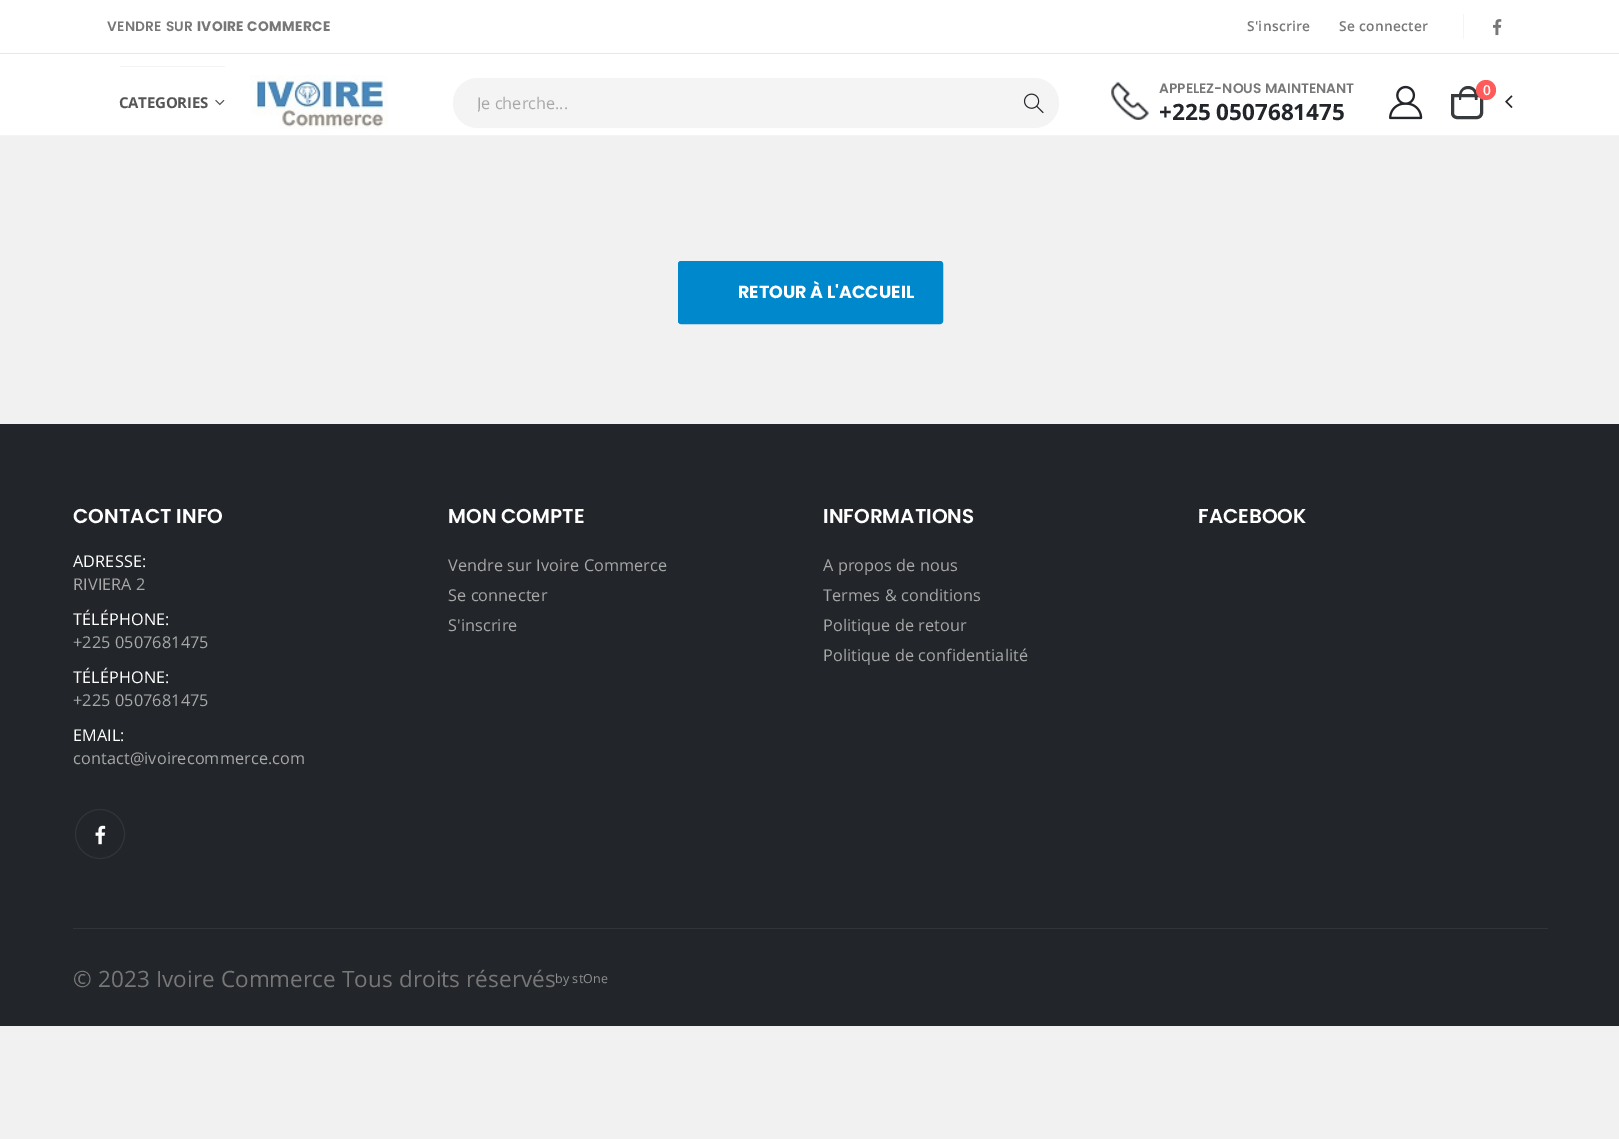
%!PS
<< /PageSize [1619 1139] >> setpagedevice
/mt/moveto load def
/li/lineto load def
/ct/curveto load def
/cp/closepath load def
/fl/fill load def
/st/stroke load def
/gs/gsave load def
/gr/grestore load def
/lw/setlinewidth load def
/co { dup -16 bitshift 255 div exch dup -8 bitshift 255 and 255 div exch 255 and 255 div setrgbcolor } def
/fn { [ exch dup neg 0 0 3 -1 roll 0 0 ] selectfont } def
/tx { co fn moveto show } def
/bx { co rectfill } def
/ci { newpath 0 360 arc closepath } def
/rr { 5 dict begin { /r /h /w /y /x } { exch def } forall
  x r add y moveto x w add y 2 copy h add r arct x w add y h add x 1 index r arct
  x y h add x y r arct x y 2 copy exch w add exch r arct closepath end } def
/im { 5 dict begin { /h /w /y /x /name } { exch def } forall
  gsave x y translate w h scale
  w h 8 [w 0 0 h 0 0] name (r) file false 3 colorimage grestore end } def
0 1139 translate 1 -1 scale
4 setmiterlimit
0 0 1619 1139 16#F1F1F2 bx
0 0 1619 135 16#FFFFFF bx
0 135 1619 1 16#F4F4F4 bx
1463 14 1 25 16#F5F5F5 bx
(media/1.raw) 1493 19 9 17 im
0 53 1619 1 16#E7E7E7 bx
120 66 105 1 16#F4F4F4 bx
(media/2.raw) 215 99 10 7 im
(media/3.raw) 250 75 138 55 im
478 78 mt 1009 78 li 1009 128 li 478 128 li 464 128 453 117 453 103 ct 453 89 464 78 478 78 ct cp fl
1009 78 mt 1034 78 li 1048 78 1059 89 1059 103 ct 1059 117 1048 128 1034 128 ct 1009 128 li cp fl
(media/4.raw) 1023 93 21 21 im
(media/5.raw) 1111 81 38 39 im
(media/6.raw) 1389 85 34 35 im
16#383B3E co
3 lw
1452.5 95.5 mt 1481.5 95.5 li 1481.5 113 li 1481.5 115.5 1479.5 117.5 1477 117.5 ct 1457 117.5 li 1454.5 117.5 1452.5 115.5 1452.5 113 ct cp st
1468 86 mt 1473.5 86 1477.5 90.5 1477.5 95.5 ct 1477.5 100 li 1459 100 li 1459 95.5 li 1459 90.5 1463 86 1468 86 ct cp 1468 89 mt 1475 89 1475 95 1475 100 ct 1461 100 li 1461 95 1461 89 1468 89 ct cp eofill
16#FF5B5B co
1486 90 10 ci fl
(media/7.raw) 1505 95 8 13 im
16#0088CC co
678.5 261.5 264 62 2.5 rr gs fl gr
1 lw
st
0 424 1619 602 16#222529 bx
16#313438 co
100 834 24.5 ci st
(media/8.raw) 95 825 11 20 im
73 928 1475 1 16#313438 bx
/Poppins-SemiBold 13.75 fn
16#777777 co
107 31 mt .3 0 (VENDRE SUR) ashow
/Poppins-Bold 13.75 fn
197 31 mt .3 0 (IVOIRE COMMERCE) ashow
/OpenSans-SemiBold 13.75 fn
1247 31 mt .3 0 (S'inscrire) ashow
1339 31 mt .3 0 (Se connecter) ashow
/OpenSans-Bold 15 fn
16#555555 co
119 108 mt -.25 0 (CATEGORIES) ashow
gs
478 91 490 23 rectclip
(Je cherche...) 477 109 /OpenSans-Regular 16.25 16#A8A8A8 tx
gr
(APPELEZ-NOUS MAINTENANT) 1159 93 /Poppins-SemiBold 13.75 16#777777 tx
(+225 0507681475) 1159 120 /OpenSans-Bold 22.5 16#222529 tx
(0) 1483 95 /OpenSans-SemiBold 13.75 16#FFFFFF tx
(RETOUR À L'ACCUEIL) 738 298 /Poppins-Bold 17.5 16#FFFFFF tx
(CONTACT INFO) 73 523 /Poppins-SemiBold 20 16#FFFFFF tx
/OpenSans-Regular 16.25 fn
73 567 mt .1 0 (ADRESSE:) ashow
16#A8A8A8 co
73 590 mt .1 0 (RIVIERA 2) ashow
16#FFFFFF co
73 625 mt .1 0 (TÉLÉPHONE:) ashow
16#A8A8A8 co
73 648 mt .1 0 (+225 0507681475) ashow
16#FFFFFF co
73 683 mt .1 0 (TÉLÉPHONE:) ashow
16#A8A8A8 co
73 706 mt .1 0 (+225 0507681475) ashow
16#FFFFFF co
73 741 mt .1 0 (EMAIL:) ashow
16#A8A8A8 co
73 764 mt .1 0 (contact@ivoirecommerce.com) ashow
(MON COMPTE) 448 523 /Poppins-SemiBold 20 16#FFFFFF tx
/OpenSans-Regular 16.25 fn
16#A8A8A8 co
448 571 mt .1 0 (Vendre sur Ivoire Commerce) ashow
448 601 mt .1 0 (Se connecter) ashow
448 631 mt .1 0 (S'inscrire) ashow
(INFORMATIONS) 823 523 /Poppins-SemiBold 20 16#FFFFFF tx
/OpenSans-Regular 16.25 fn
16#A8A8A8 co
823 571 mt .1 0 (A propos de nous) ashow
823 601 mt .1 0 (Termes & conditions) ashow
823 631 mt .1 0 (Politique de retour) ashow
823 661 mt .1 0 (Politique de confidentialité) ashow
(FACEBOOK) 1198 523 /Poppins-SemiBold 20 16#FFFFFF tx
/OpenSans-Regular 22.5 fn
16#777777 co
73 987 mt .1 0 (© 2023 Ivoire Commerce Tous droits réservés) ashow
/OpenSans-Regular 12.5 fn
16#919294 co
555 983 mt .1 0 (by stOne) ashow
showpage
